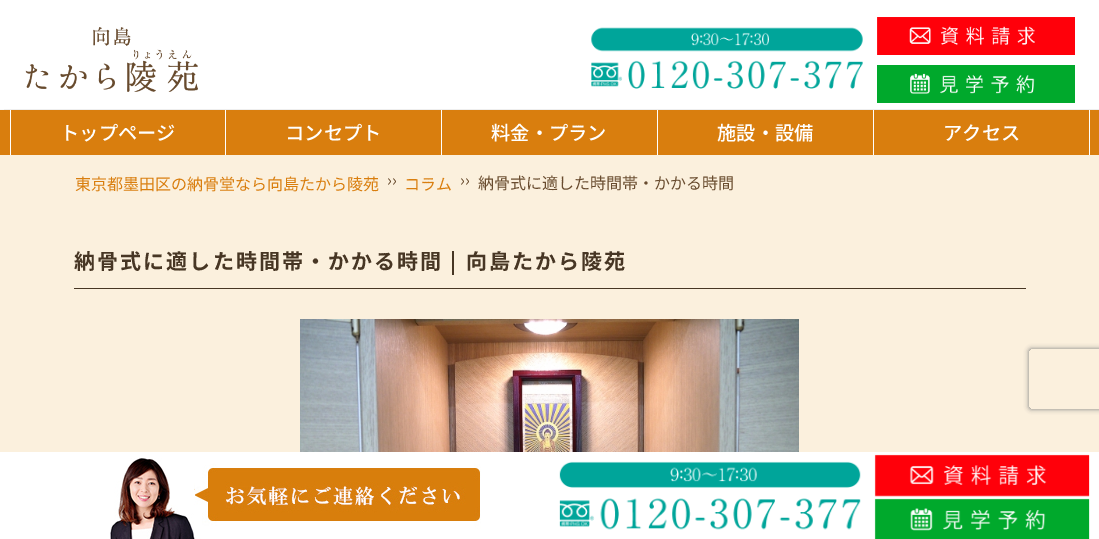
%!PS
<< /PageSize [1099 539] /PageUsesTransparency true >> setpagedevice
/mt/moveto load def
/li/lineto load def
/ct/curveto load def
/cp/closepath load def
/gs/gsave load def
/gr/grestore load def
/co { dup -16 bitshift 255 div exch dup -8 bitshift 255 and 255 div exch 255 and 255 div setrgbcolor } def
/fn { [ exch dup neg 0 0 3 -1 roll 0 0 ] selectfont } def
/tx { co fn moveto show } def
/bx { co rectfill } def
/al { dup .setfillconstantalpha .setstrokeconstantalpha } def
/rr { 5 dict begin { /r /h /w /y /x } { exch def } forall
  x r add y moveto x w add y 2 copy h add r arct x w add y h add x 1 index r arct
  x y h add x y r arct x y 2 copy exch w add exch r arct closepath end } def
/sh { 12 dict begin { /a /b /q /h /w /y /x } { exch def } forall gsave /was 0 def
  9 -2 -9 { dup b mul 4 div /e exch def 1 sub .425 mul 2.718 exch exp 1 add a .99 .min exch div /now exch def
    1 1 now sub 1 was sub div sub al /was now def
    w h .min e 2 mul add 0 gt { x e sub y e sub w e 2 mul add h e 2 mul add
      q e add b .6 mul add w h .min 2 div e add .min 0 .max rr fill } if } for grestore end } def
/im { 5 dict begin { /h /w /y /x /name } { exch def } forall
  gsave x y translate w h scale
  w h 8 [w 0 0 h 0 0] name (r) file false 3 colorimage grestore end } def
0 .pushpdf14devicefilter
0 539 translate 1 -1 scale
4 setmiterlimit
0 0 1099 539 16#FFFFFF bx
0 109 1099 1 16#F9F9F9 bx
(media/1.raw) 25 27 173 65 im
(media/2.raw) 591 27 272 62 im
(media/3.raw) 877 17 198 38 im
(media/4.raw) 877 65 198 38 im
0 110 1099 45 16#D97E0E bx
gs
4 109 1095 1 rectclip
16#252823 co
4 114 1095 41 0 2.5 1 sh
gr
225 110 1 45 16#FFFFFF bx
10 110 1 45 16#FFFFFF bx
441 110 1 45 16#FFFFFF bx
657 110 1 45 16#FFFFFF bx
873 110 1 45 16#FFFFFF bx
1089 110 1 45 16#FFFFFF bx
0 155 1099 297 16#FBF0DD bx
74 288 952 1 16#473624 bx
(media/5.raw) 300 319 499 133 im
(media/6.raw) 110 458 371 81 im
(media/7.raw) 559 461 302 69 im
(media/8.raw) 874 454 216 43 im
(media/9.raw) 874 498 216 41 im
gs
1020 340 mt 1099 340 li 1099 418 li 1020 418 li cp 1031 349 mt 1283 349 li 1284 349 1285 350 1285 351 ct 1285 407 li 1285 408 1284 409 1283 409 ct 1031 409 li 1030 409 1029 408 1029 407 ct 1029 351 li 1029 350 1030 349 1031 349 ct cp eoclip newpath
16#808080 co
1029 349 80 60 2 2.5 1 sh
gr
(トップページ) 60 140 /NotoSansJP-Medium 19.25 16#FFFFFF tx
(コンセプト) 285 140 /NotoSansJP-Medium 19.25 16#FFFFFF tx
(料金・プラン) 491 140 /NotoSansJP-Medium 19.25 16#FFFFFF tx
(施設・設備) 717 140 /NotoSansJP-Medium 19.25 16#FFFFFF tx
(アクセス) 943 140 /NotoSansJP-Medium 19.25 16#FFFFFF tx
(東京都墨田区の納骨堂なら向島たから陵苑) 75 190 /NotoSansJP-Regular 16 16#D97E0E tx
(››) 387 186 /NotoSansJP-Regular 16 16#694C2F tx
(コラム) 404 190 /NotoSansJP-Regular 16 16#D97E0E tx
(››) 460 186 /NotoSansJP-Regular 16 16#694C2F tx
(納骨式に適した時間帯・かかる時間) 478 189 /NotoSansJP-Regular 16 16#694C2F tx
/NotoSansJP-Bold 21 fn
16#473624 co
74 269 mt 2.1 0 (納骨式に適した時間帯・かかる時間 | 向島たから陵苑) ashow
.poppdf14devicefilter showpage
